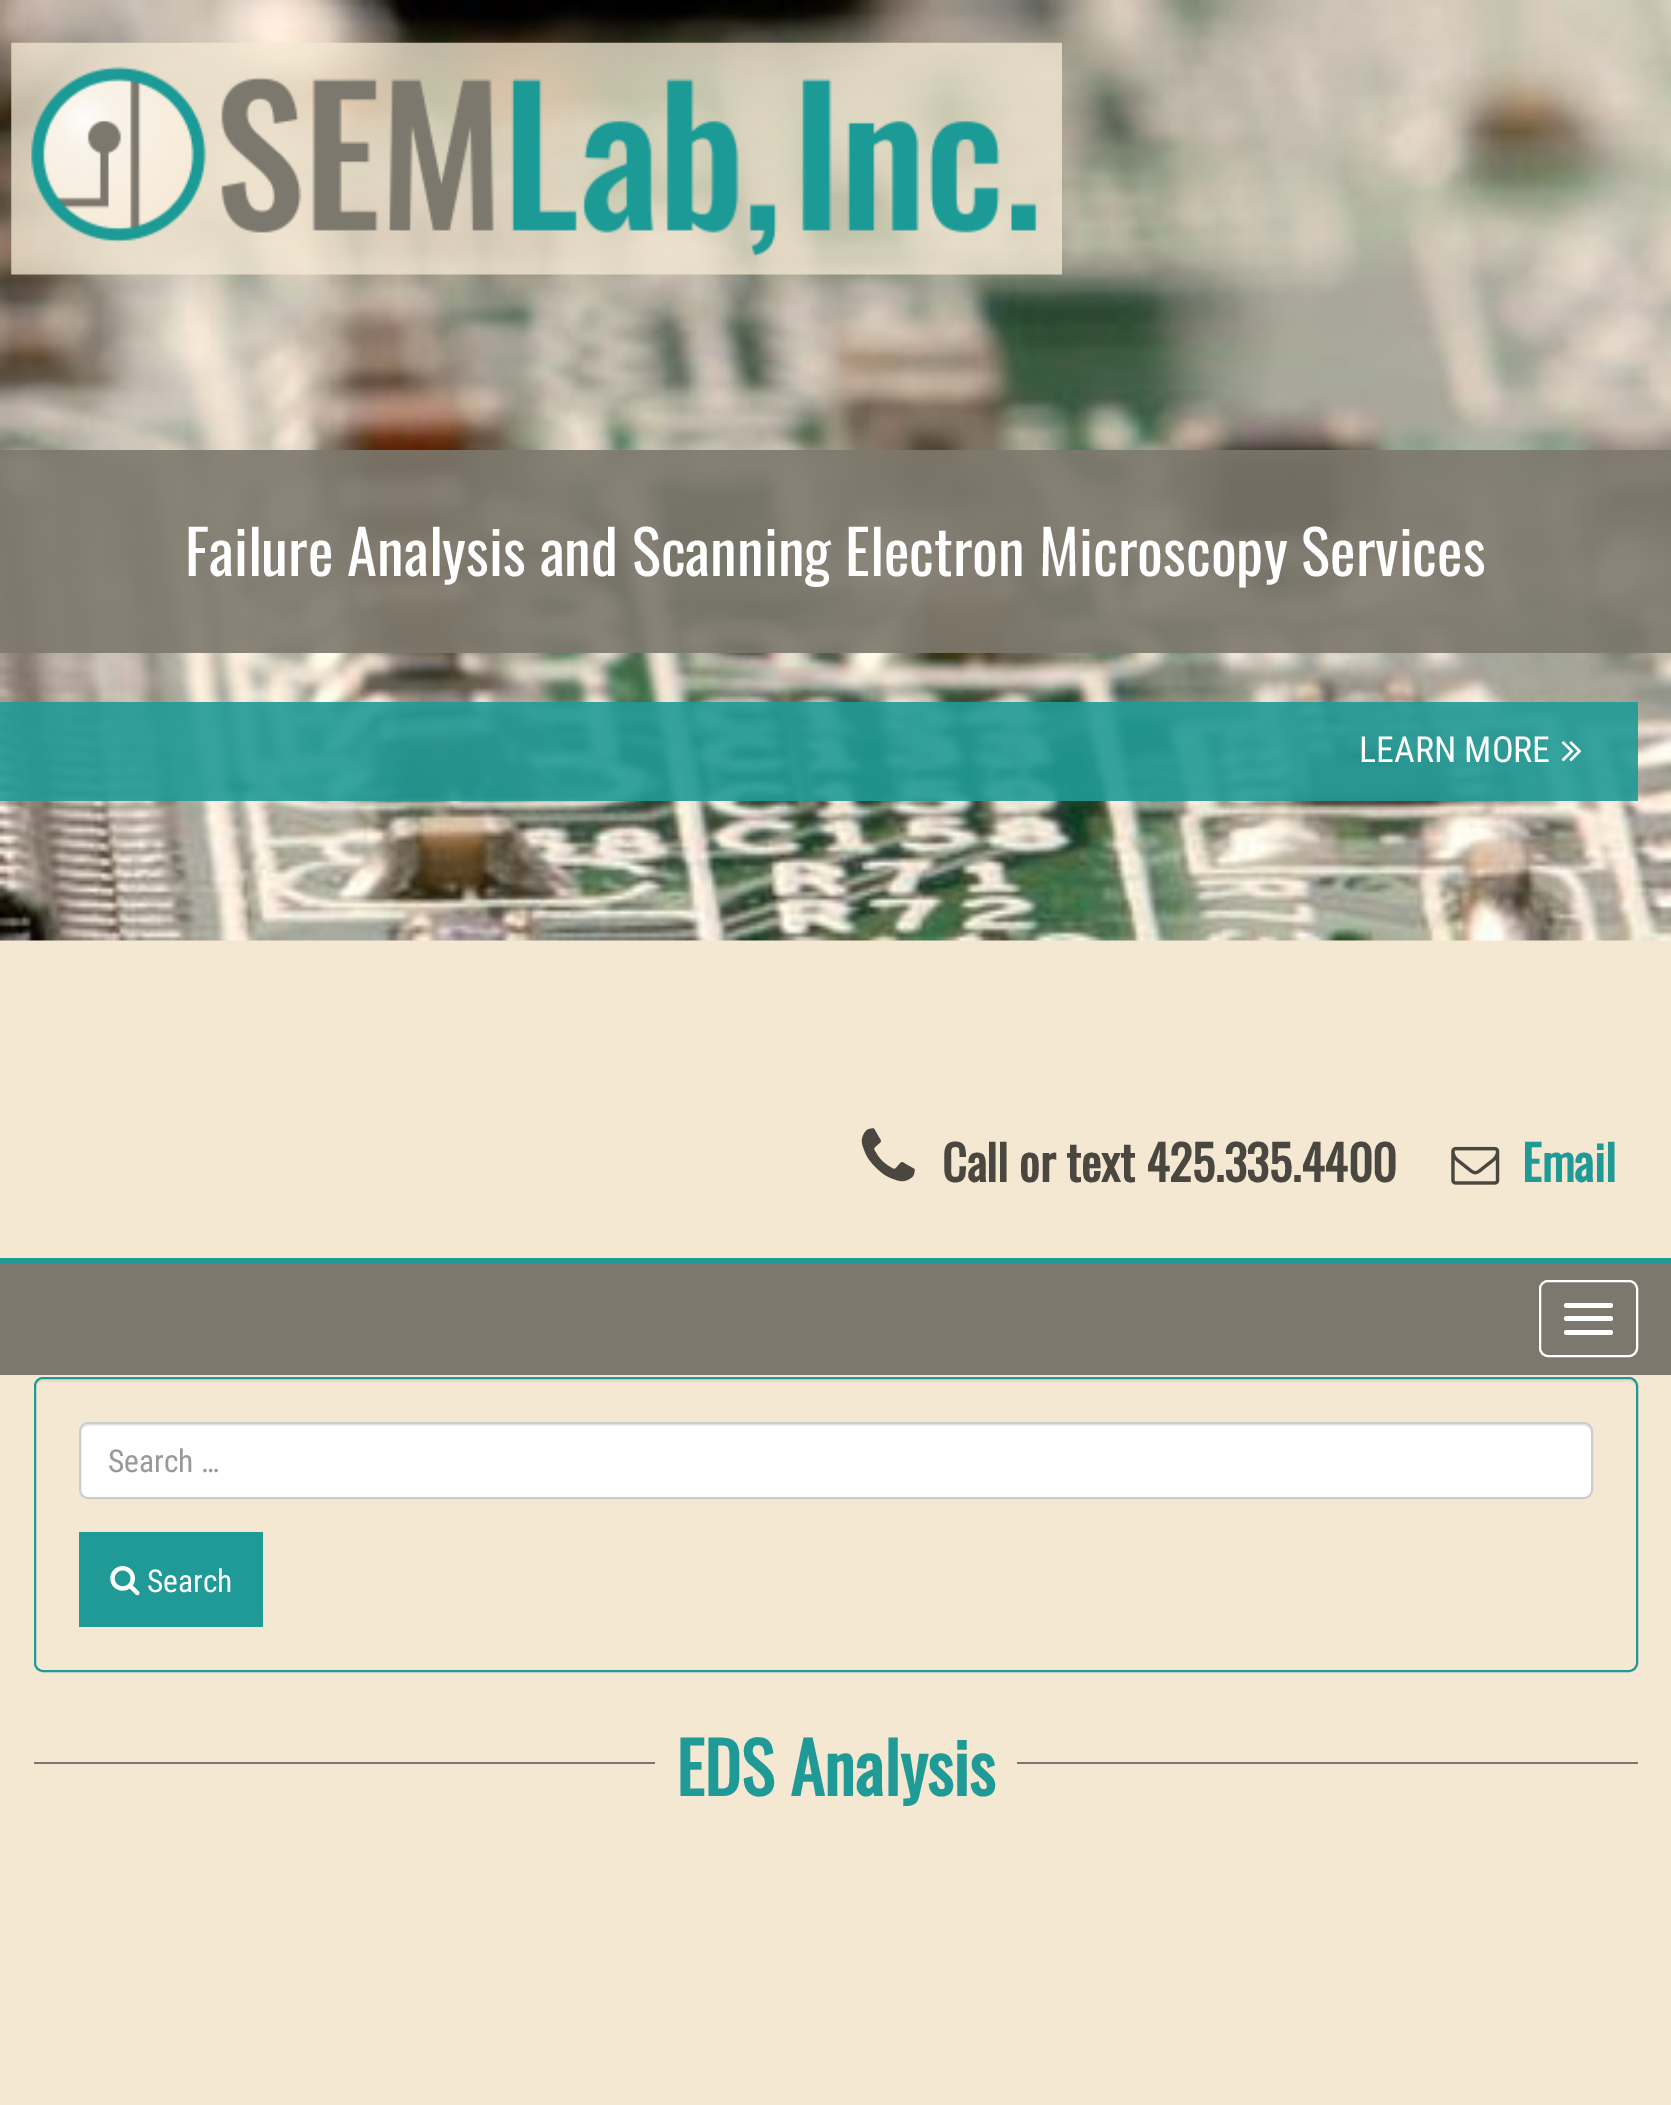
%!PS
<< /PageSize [1671 2105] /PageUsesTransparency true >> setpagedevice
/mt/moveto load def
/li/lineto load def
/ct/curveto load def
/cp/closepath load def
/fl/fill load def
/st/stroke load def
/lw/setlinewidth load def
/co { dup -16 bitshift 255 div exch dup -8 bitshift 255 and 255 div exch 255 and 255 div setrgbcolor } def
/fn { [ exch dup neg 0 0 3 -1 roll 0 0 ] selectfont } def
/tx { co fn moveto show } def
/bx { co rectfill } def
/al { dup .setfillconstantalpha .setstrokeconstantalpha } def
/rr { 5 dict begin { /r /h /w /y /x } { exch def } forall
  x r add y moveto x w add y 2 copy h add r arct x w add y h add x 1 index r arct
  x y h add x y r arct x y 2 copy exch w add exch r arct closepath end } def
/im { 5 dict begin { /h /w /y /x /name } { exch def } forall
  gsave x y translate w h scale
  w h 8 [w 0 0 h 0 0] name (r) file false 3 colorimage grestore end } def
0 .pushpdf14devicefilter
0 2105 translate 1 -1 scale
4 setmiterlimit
0 0 1671 2105 16#F5E8D3 bx
(media/1.raw) 0 0 1671 941 im
(media/2.raw) 11 42 1051 233 im
0.9 al
0 450 1671 203 16#7D786D bx
0 702 1638 99 16#209A96 bx
1 al
(media/3.raw) 1561 741 21 21 im
(media/4.raw) 861 1128 54 54 im
(media/5.raw) 1451 1146 49 39 im
0 1263 1671 112 16#7D786D bx
0 1258 1671 5 16#209A96 bx
16#FFFFFF co
2 lw
1540 1281 97 75 8 rr st
1564 1303 49 5 2.5 rr fl
1564 1316 49 5 2.5 rr fl
1564 1330 49 5 2.5 rr fl
16#E9DCC8 co
43 1382 mt 1629 1382 li 1633 1382 1636 1385 1636 1388 ct 1636 1384 1634 1379 1629 1379 ct 43 1379 li 38 1379 36 1384 36 1388 ct 36 1385 39 1382 43 1382 ct cp fl
16#209A96 co
35 1378 1602 293 8 rr st
16#FFFFFF co
79 1422 1514 77 9 rr fl
16#ECECEC co
88 1426 mt 1584 1426 li 1588 1426 1591 1430 1591 1433 ct 1591 1429 1589 1424 1584 1424 ct 88 1424 li 83 1424 81 1429 81 1433 ct 81 1430 84 1426 88 1426 ct cp fl
16#CCCCCC co
80 1423 1512 75 8 rr st
79 1532 184 95 16#209A96 bx
(media/6.raw) 110 1566 30 30 im
34 1762 1604 2 16#7D786D bx
655 1762 362 2 16#F5E8D3 bx
(Failure Analysis and Scanning Electron Microscopy Services) 185 576 /Oswald-Regular 60.75 16#FFFFFF tx
(LEARN MORE) 1359 762 /RobotoCondensed-Regular 36 16#FFFFFF tx
(Call or text 425.335.4400) 942 1182 /Oswald-Bold 48 16#4A4740 tx
(Email) 1522 1182 /Oswald-Bold 48 16#209A96 tx
(Search …) 108 1472 /RobotoCondensed-Regular 31.5 16#999999 tx
(Search) 147 1592 /RobotoCondensed-Regular 31.5 16#FFFFFF tx
(EDS Analysis) 676 1796 /Oswald-Bold 69.75 16#209A96 tx
.poppdf14devicefilter showpage
